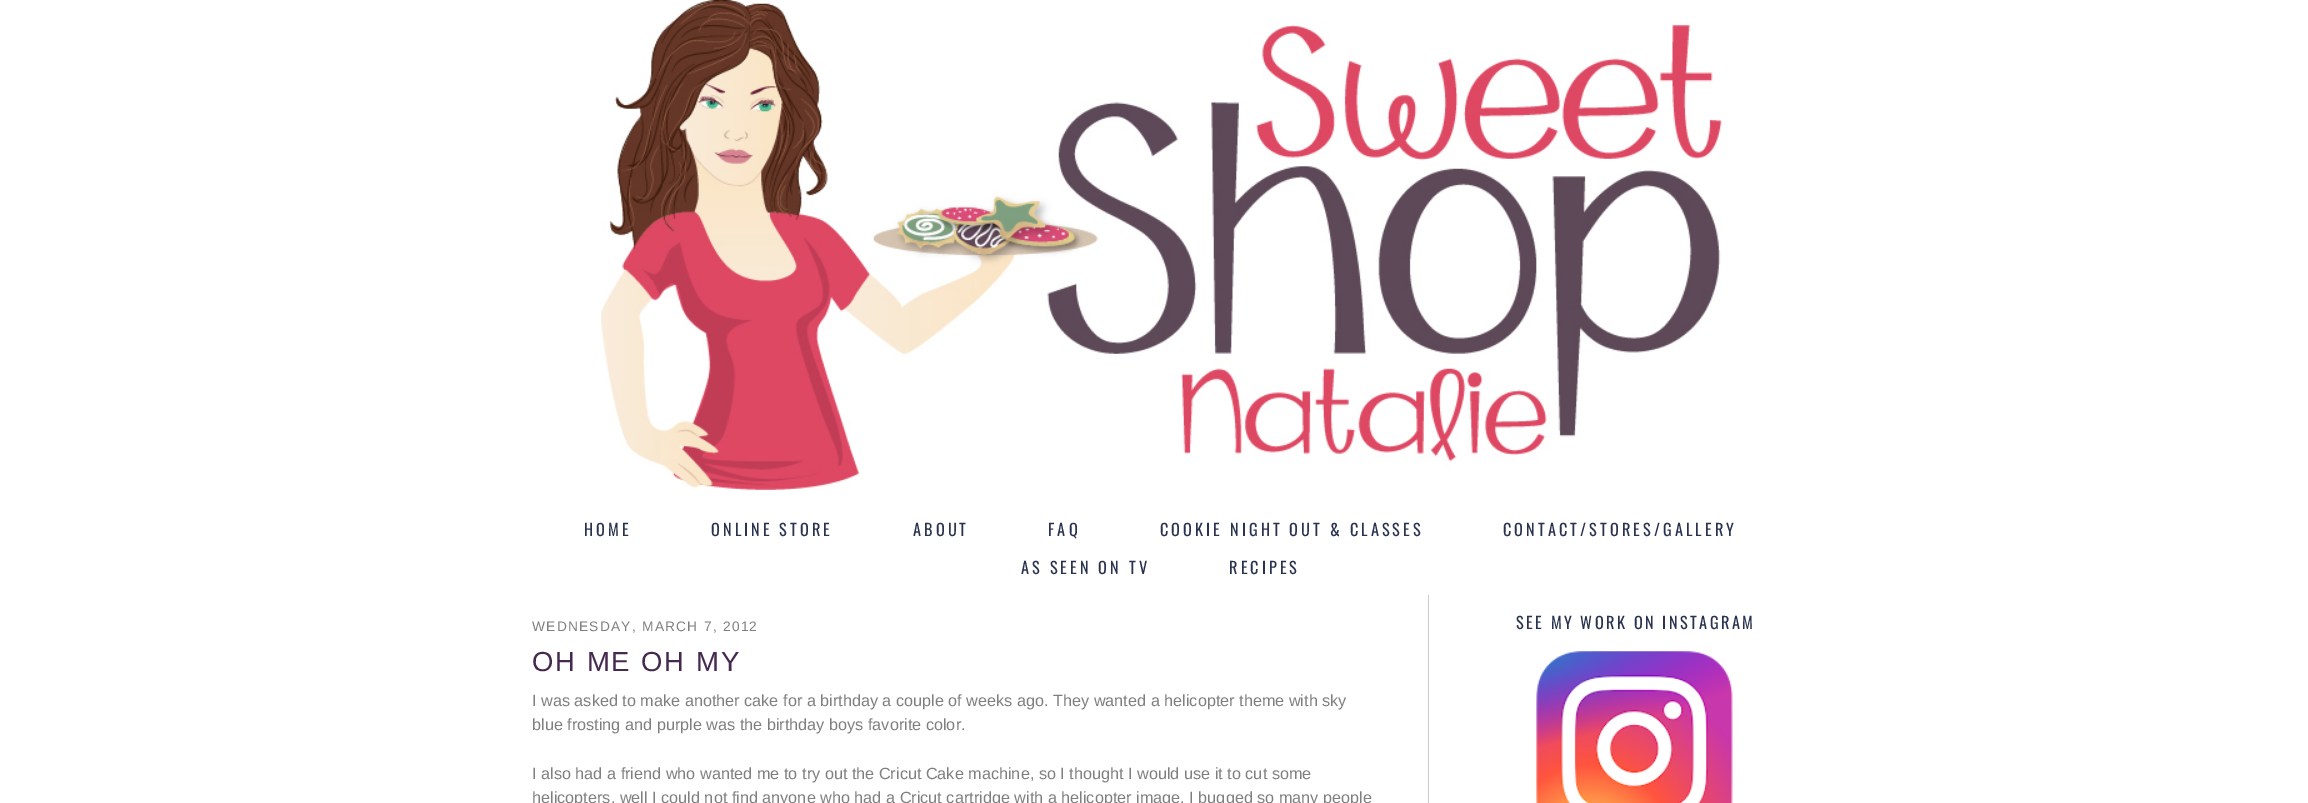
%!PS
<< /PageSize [2308 803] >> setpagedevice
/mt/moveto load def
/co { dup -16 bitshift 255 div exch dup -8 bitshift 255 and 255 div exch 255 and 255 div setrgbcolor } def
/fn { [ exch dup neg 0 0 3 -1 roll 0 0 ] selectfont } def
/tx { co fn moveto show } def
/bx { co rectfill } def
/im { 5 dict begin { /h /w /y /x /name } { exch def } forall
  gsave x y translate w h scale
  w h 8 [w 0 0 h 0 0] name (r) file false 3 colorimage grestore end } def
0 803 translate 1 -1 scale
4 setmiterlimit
0 0 2308 803 16#FFFFFF bx
(media/1.raw) 601 0 1121 490 im
1428 595 1 208 16#CCCCCC bx
(media/2.raw) 1536 651 197 152 im
/Oswald-Regular 16.25 fn
16#29324F co
584 536 mt 3.1 0 (HOME) ashow
711 536 mt 3.1 0 (ONLINE STORE) ashow
913 536 mt 3.1 0 (ABOUT) ashow
1048 536 mt 3.1 0 (FAQ) ashow
1160 536 mt 3.1 0 (COOKIE NIGHT OUT & CLASSES) ashow
1503 536 mt 3.1 0 (CONTACT/STORES/GALLERY) ashow
1021 574 mt 3.1 0 (AS SEEN ON TV) ashow
1229 574 mt 3.1 0 (RECIPES) ashow
/LiberationSans-Regular 13.75 fn
16#7F7F7F co
532 631 mt 1.25 0 (WEDNESDAY, MARCH 7, 2012) ashow
/LiberationSans-Regular 27.5 fn
16#45294F co
532 671 mt 1.9 0 (OH ME OH MY) ashow
(I was asked to make another cake for a birthday a couple of weeks ago. They wanted a helicopter theme with sky) 532 706 /LiberationSans-Regular 16.25 16#7F7F7F tx
(blue frosting and purple was the birthday boys favorite color.) 532 730 /LiberationSans-Regular 16.25 16#7F7F7F tx
(I also had a friend who wanted me to try out the Cricut Cake machine, so I thought I would use it to cut some) 532 779 /LiberationSans-Regular 16.25 16#7F7F7F tx
(helicopters, well I could not find anyone who had a Cricut cartridge with a helicopter image. I bugged so many people) 532 803 /LiberationSans-Regular 16.25 16#7F7F7F tx
/Oswald-Regular 16.25 fn
16#29324F co
1516 629 mt 2.5 0 (SEE MY WORK ON INSTAGRAM) ashow
showpage
